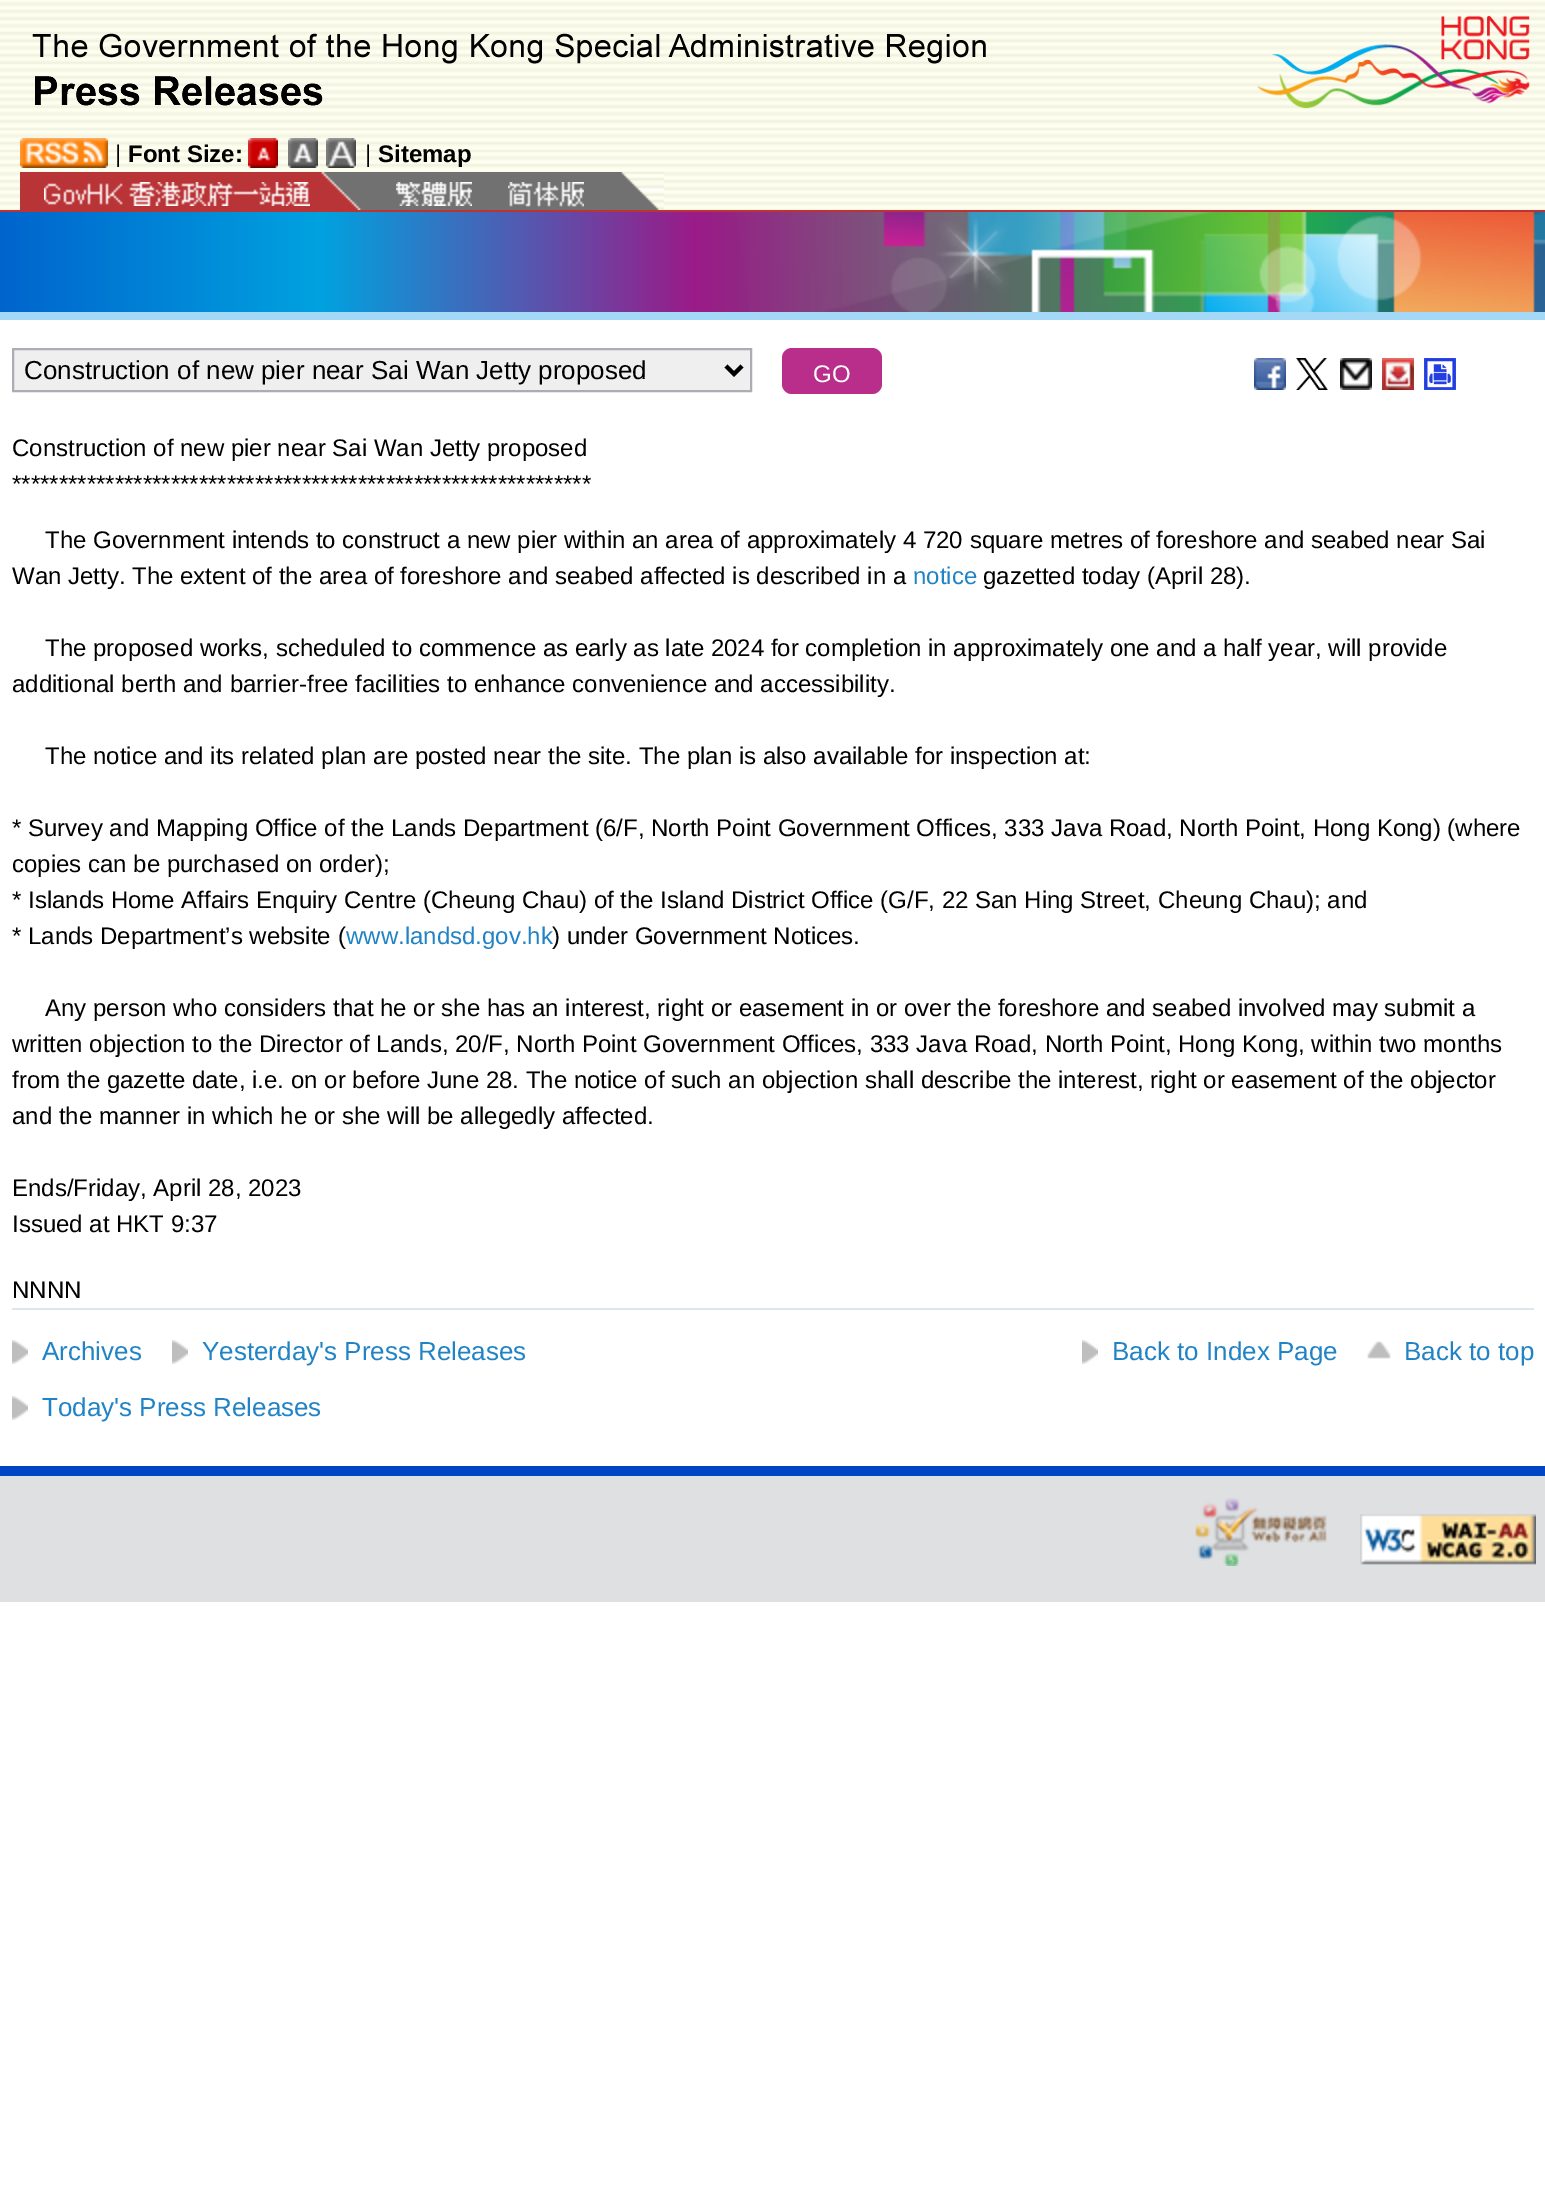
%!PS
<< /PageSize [1545 2204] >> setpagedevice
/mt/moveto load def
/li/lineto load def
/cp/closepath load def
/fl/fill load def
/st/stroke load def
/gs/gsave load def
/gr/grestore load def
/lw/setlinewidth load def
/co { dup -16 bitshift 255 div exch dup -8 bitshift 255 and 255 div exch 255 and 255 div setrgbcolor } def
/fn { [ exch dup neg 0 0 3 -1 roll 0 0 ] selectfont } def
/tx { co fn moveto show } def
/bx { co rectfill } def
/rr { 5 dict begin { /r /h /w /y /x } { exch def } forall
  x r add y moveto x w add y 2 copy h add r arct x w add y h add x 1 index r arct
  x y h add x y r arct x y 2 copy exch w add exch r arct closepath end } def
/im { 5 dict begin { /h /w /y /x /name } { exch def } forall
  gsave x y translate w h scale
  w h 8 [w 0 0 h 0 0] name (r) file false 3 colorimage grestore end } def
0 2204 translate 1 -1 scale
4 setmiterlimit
0 0 1545 2204 16#FFFFFF bx
(media/1.raw) 0 0 1545 210 im
0 210 1545 2 16#BB3333 bx
(media/2.raw) 32 33 954 73 im
(media/3.raw) 1257 15 273 94 im
(media/4.raw) 20 138 88 30 im
(media/5.raw) 248 138 30 30 im
(media/6.raw) 288 138 30 30 im
(media/7.raw) 326 138 30 30 im
361 172 260 38 16#717171 bx
(media/8.raw) 20 172 341 38 im
(media/9.raw) 44 182 266 24 im
(media/10.raw) 396 182 76 24 im
(media/11.raw) 621 172 43 38 im
(media/12.raw) 508 182 76 25 im
(media/13.raw) 0 212 1545 100 im
0 312 1545 8 16#A3D8F7 bx
0 1466 1545 10 16#0046C4 bx
16#EFEFEF co
13 349 mt 751 349 li 751 391 li 13 391 li cp gs fl gr
16#ABADB3 co
2 lw
st
16#000000 co
4 lw
726 366 mt 734 374 li 742 366 li st
16#B82E8A co
782 348 100 46 10 rr fl
(media/14.raw) 1254 358 32 32 im
(media/15.raw) 1296 358 32 32 im
(media/16.raw) 1340 358 32 32 im
(media/17.raw) 1382 358 32 32 im
(media/18.raw) 1424 358 32 32 im
12 1308 1522 2 16#DCE7E9 bx
(media/19.raw) 12 1340 16 24 im
(media/19.raw) 172 1340 16 24 im
(media/19.raw) 1082 1340 16 24 im
(media/20.raw) 1367 1341 24 18 im
(media/19.raw) 12 1396 16 24 im
0 1476 1545 126 16#DEE0E2 bx
(media/21.raw) 1195 1498 132 68 im
(media/22.raw) 1360 1514 176 51 im
(|) 115 162 /LiberationSans-Regular 24 16#000000 tx
(Font Size:) 128 162 /LiberationSans-Bold 24 16#000000 tx
(|) 365 162 /LiberationSans-Regular 24 16#000000 tx
(Sitemap) 378 162 /LiberationSans-Bold 24 16#000000 tx
(Construction of new pier near Sai Wan Jetty proposed) 24 379 /LiberationSans-Regular 26 16#000000 tx
(GO) 813 382 /LiberationSans-Regular 24 16#FFFFFF tx
(Construction of new pier near Sai Wan Jetty proposed) 12 456 /LiberationSans-Regular 24 16#000000 tx
(**************************************************************) 12 492 /LiberationSans-Regular 24 16#000000 tx
(The Government intends to construct a new pier within an area of approximately 4 720 square metres of foreshore and seabed near Sai) 45 548 /LiberationSans-Regular 24 16#000000 tx
(Wan Jetty. The extent of the area of foreshore and seabed affected is described in a) 12 584 /LiberationSans-Regular 24 16#000000 tx
(notice) 913 584 /LiberationSans-Regular 24 16#2083C5 tx
(gazetted today \(April 28\).) 983 584 /LiberationSans-Regular 24 16#000000 tx
(The proposed works, scheduled to commence as early as late 2024 for completion in approximately one and a half year, will provide) 45 656 /LiberationSans-Regular 24 16#000000 tx
(additional berth and barrier-free facilities to enhance convenience and accessibility.) 12 692 /LiberationSans-Regular 24 16#000000 tx
(The notice and its related plan are posted near the site. The plan is also available for inspection at:) 45 764 /LiberationSans-Regular 24 16#000000 tx
(* Survey and Mapping Office of the Lands Department \(6/F, North Point Government Offices, 333 Java Road, North Point, Hong Kong\) \(where) 12 836 /LiberationSans-Regular 24 16#000000 tx
(copies can be purchased on order\);) 12 872 /LiberationSans-Regular 24 16#000000 tx
(* Islands Home Affairs Enquiry Centre \(Cheung Chau\) of the Island District Office \(G/F, 22 San Hing Street, Cheung Chau\); and) 12 908 /LiberationSans-Regular 24 16#000000 tx
(* Lands Department’s website \() 12 944 /LiberationSans-Regular 24 16#000000 tx
(www.landsd.gov.hk) 346 944 /LiberationSans-Regular 24 16#2083C5 tx
(\) under Government Notices.) 552 944 /LiberationSans-Regular 24 16#000000 tx
(Any person who considers that he or she has an interest, right or easement in or over the foreshore and seabed involved may submit a) 45 1016 /LiberationSans-Regular 24 16#000000 tx
(written objection to the Director of Lands, 20/F, North Point Government Offices, 333 Java Road, North Point, Hong Kong, within two months) 12 1052 /LiberationSans-Regular 24 16#000000 tx
(from the gazette date, i.e. on or before June 28. The notice of such an objection shall describe the interest, right or easement of the objector) 12 1088 /LiberationSans-Regular 24 16#000000 tx
(and the manner in which he or she will be allegedly affected.) 12 1124 /LiberationSans-Regular 24 16#000000 tx
(Ends/Friday, April 28, 2023) 12 1196 /LiberationSans-Regular 24 16#000000 tx
(Issued at HKT 9:37) 12 1232 /LiberationSans-Regular 24 16#000000 tx
(NNNN) 12 1298 /LiberationSans-Regular 24 16#000000 tx
(Archives) 42 1360 /LiberationSans-Regular 26 16#2083C5 tx
(Yesterday's Press Releases) 202 1360 /LiberationSans-Regular 26 16#2083C5 tx
(Back to Index Page) 1112 1360 /LiberationSans-Regular 26 16#2083C5 tx
(Back to top) 1404 1360 /LiberationSans-Regular 26 16#2083C5 tx
(Today's Press Releases) 42 1416 /LiberationSans-Regular 26 16#2083C5 tx
showpage
